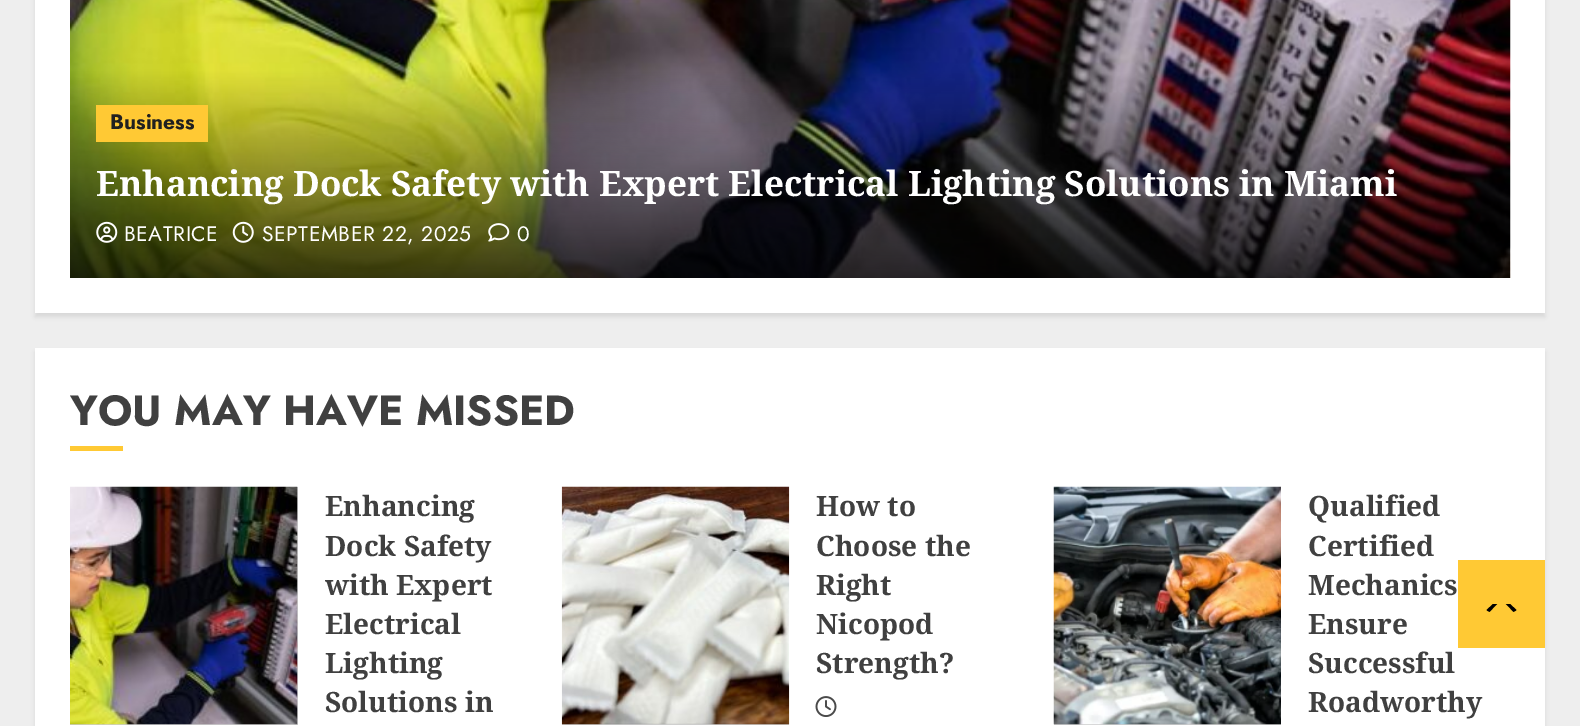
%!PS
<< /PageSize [1580 726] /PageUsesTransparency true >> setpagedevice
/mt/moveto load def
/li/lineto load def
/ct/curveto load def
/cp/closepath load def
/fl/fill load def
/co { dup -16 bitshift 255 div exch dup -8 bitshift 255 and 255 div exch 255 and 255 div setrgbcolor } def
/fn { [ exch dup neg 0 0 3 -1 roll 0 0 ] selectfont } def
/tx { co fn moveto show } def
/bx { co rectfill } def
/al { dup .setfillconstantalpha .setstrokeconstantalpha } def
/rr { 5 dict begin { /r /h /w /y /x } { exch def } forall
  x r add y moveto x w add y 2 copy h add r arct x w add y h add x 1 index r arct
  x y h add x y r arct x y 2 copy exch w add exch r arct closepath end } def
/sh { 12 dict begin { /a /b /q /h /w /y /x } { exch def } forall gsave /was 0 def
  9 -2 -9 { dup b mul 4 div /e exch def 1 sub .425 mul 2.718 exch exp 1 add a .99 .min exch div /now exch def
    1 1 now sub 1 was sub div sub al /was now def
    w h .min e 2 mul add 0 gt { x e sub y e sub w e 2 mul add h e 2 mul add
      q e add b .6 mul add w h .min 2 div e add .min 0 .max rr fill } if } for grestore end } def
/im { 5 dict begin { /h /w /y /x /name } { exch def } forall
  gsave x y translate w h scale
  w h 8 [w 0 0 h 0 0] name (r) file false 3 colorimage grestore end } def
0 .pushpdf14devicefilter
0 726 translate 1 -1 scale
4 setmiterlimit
0 0 1580 726 16#EEEEEE bx
16#000000 co
35 -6 1510 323 0 2 .08 sh
35 0 1510 313 16#FFFFFF bx
(media/1.raw) 70 0 1441 278 im
96 105 112 37 16#FFC934 bx
(media/2.raw) 96 221 22 22 im
(media/3.raw) 232 221 22 22 im
(media/4.raw) 488 223 22 19 im
16#000000 co
35 352 1510 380 0 2 .08 sh
35 348 1510 378 16#FFFFFF bx
70 446 53 5 16#FFC934 bx
70 487 228 238 16#CCCCCC bx
(media/5.raw) 70 486 228 239 im
562 724 227 1 16#CCCCCC bx
(media/6.raw) 561 486 229 239 im
(media/7.raw) 815 696 22 21 im
1054 724 227 1 16#CCCCCC bx
(media/8.raw) 1053 486 228 239 im
1458 560 87 88 16#FFC934 bx
16#000000 co
1493 612.5 mt 1510 612.5 li 1512.5 612.5 1515 611.5 1516.5 610 ct 1510 604 li 1493 604 li 1486.5 610 li 1488 611.5 1490.5 612.5 1493 612.5 ct cp fl
16#FFC934 co
1519 618 mt 1484 618 li 1501.5 600 li cp fl
(Business) 110 129 /Jost-Bold 21 16#202020 tx
(Enhancing Dock Safety with Expert Electrical Lighting Solutions in Miami) 96 196 /NotoSerif-Bold 35 16#FFFFFF tx
/Jost-Regular 21 fn
124 241 mt .6 0 (BEATRICE) ashow
262 241 mt .6 0 (SEPTEMBER 22, 2025) ashow
517 241 mt .6 0 (0) ashow
(YOU MAY HAVE MISSED) 70 425 /Jost-Bold 42 16#404040 tx
(Enhancing) 325 516 /NotoSerif-Bold 28 16#404040 tx
(Dock Safety) 325 556 /NotoSerif-Bold 28 16#404040 tx
(with Expert) 325 595 /NotoSerif-Bold 28 16#404040 tx
(Electrical) 325 634 /NotoSerif-Bold 28 16#404040 tx
(Lighting) 325 673 /NotoSerif-Bold 28 16#404040 tx
(Solutions in) 325 712 /NotoSerif-Bold 28 16#404040 tx
(How to) 816 516 /NotoSerif-Bold 28 16#404040 tx
(Choose the) 816 556 /NotoSerif-Bold 28 16#404040 tx
(Right) 816 595 /NotoSerif-Bold 28 16#404040 tx
(Nicopod) 816 634 /NotoSerif-Bold 28 16#404040 tx
(Strength?) 816 673 /NotoSerif-Bold 28 16#404040 tx
(Qualified) 1308 516 /NotoSerif-Bold 28 16#404040 tx
(Certified) 1308 556 /NotoSerif-Bold 28 16#404040 tx
(Mechanics) 1308 595 /NotoSerif-Bold 28 16#404040 tx
(Ensure) 1308 634 /NotoSerif-Bold 28 16#404040 tx
(Successful) 1308 673 /NotoSerif-Bold 28 16#404040 tx
(Roadworthy) 1308 712 /NotoSerif-Bold 28 16#404040 tx
.poppdf14devicefilter showpage
